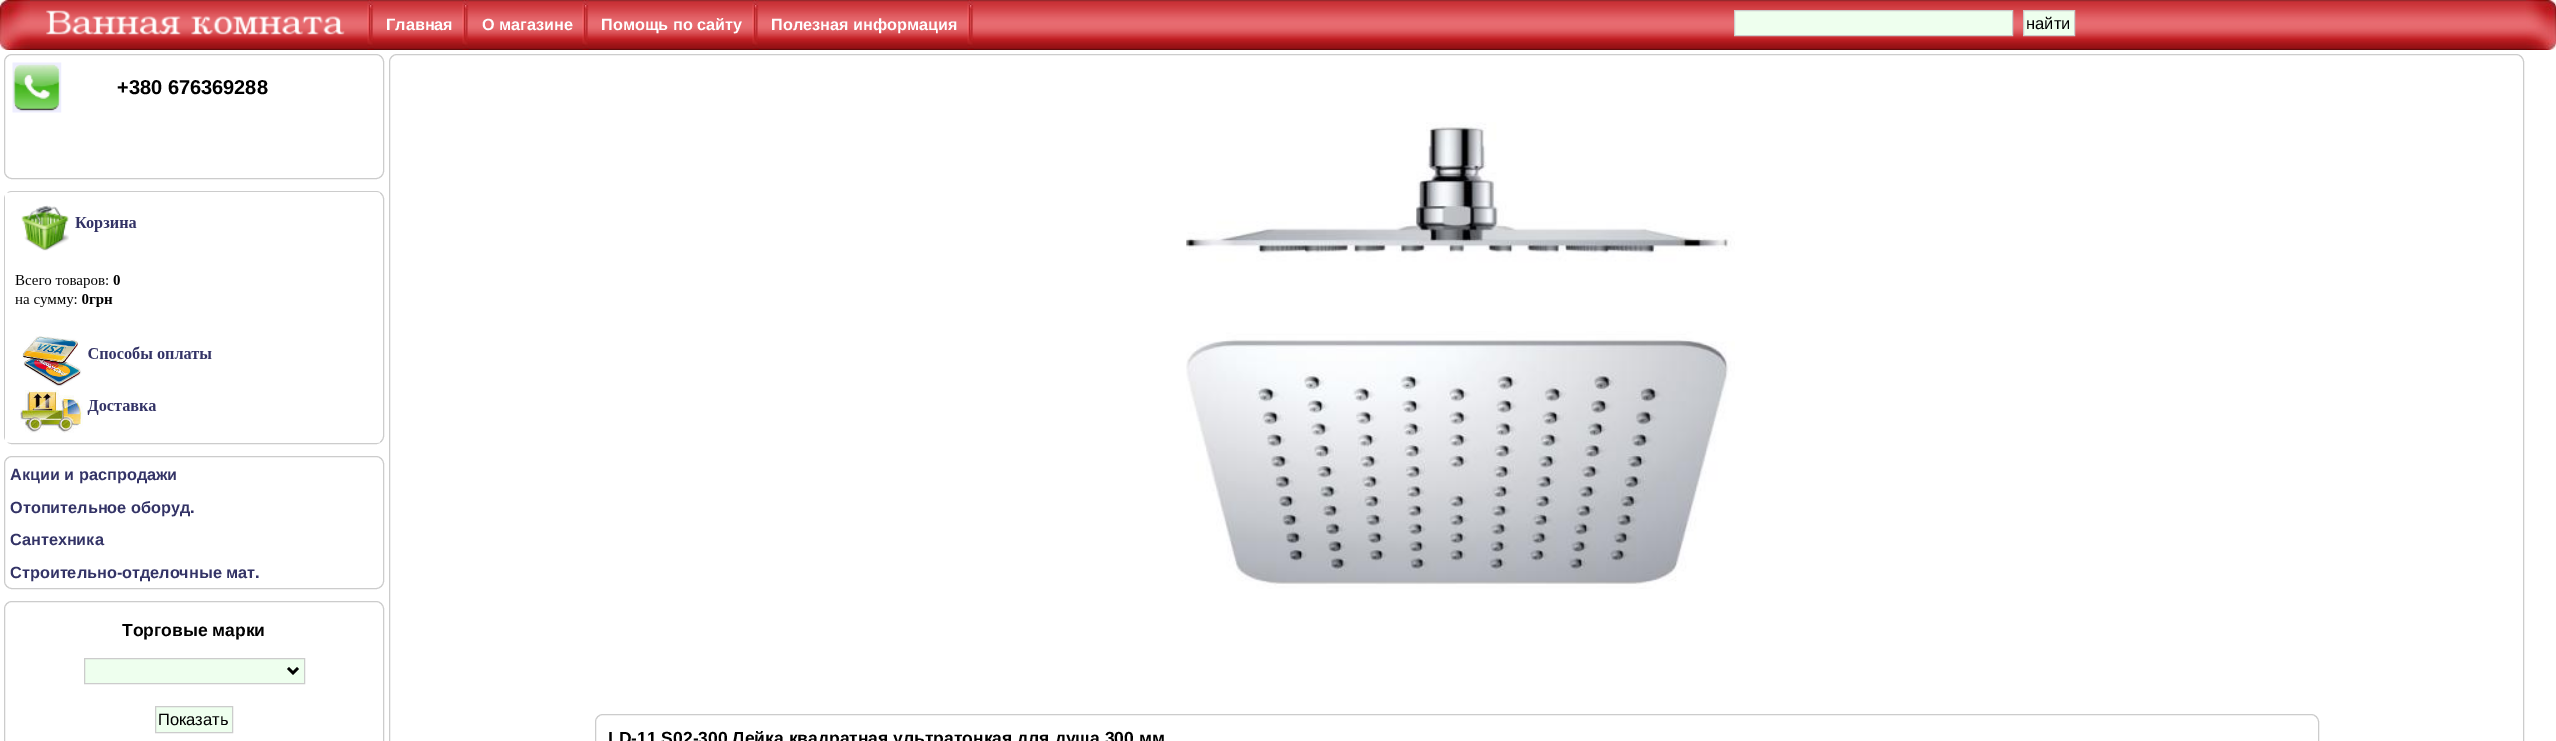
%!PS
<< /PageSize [2556 741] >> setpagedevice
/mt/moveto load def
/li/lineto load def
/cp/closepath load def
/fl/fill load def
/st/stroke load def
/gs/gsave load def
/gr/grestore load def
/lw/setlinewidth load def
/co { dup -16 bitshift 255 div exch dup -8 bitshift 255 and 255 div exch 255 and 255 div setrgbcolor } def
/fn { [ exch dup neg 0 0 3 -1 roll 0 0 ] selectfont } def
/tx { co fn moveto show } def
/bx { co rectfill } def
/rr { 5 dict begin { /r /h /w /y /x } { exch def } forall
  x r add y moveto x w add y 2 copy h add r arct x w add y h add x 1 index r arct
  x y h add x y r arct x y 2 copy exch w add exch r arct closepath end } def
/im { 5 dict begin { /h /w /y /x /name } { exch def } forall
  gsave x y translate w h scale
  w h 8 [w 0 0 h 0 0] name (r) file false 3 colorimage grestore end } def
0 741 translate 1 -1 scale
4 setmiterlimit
0 0 2556 741 16#FFFFFF bx
(media/1.raw) 30 0 2497 50 im
(media/2.raw) 0 0 30 50 im
(media/3.raw) 46 10 299 25 im
(media/4.raw) 367 0 7 50 im
(media/5.raw) 462 0 7 50 im
(media/4.raw) 582 0 7 50 im
(media/5.raw) 752 0 7 50 im
(media/4.raw) 967 0 7 50 im
16#EEFFEE co
1734.5 10.5 mt 2012.5 10.5 li 2012.5 35.5 li 1734.5 35.5 li cp gs fl gr
16#CCCCCC co
st
16#EEFFEE co
2023.5 10.5 mt 2074.5 10.5 li 2074.5 35.5 li 2023.5 35.5 li cp gs fl gr
16#CCCCCC co
st
(media/6.raw) 2526 0 30 50 im
4.5 54.5 379 124 7.5 rr st
(media/7.raw) 12 62 50 51 im
4.5 191.5 379 252 7.5 rr st
(media/8.raw) 5 192 375 251 im
4.5 456.5 379 132 7.5 rr st
4.5 601.5 379 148 7.5 rr st
16#EEFFEE co
84.5 658.5 mt 304.5 658.5 li 304.5 683.5 li 84.5 683.5 li cp gs fl gr
16#CCCCCC co
st
16#000000 co
2.5 lw
288 668 mt 293 673 li 298 668 li st
16#EEFFEE co
155.5 706.5 mt 232.5 706.5 li 232.5 732.5 li 155.5 732.5 li cp gs fl gr
16#CCCCCC co
1 lw
st
389.5 54.5 2134 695 7.5 rr st
(media/9.raw) 1186 122 549 467 im
595.5 714.5 1723 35 7.5 rr st
(Главная) 386 30 /LiberationSans-Bold 16.25 16#FFFFFF tx
(О магазине) 482 30 /LiberationSans-Bold 16.25 16#FFFFFF tx
(Помощь по сайту) 601 30 /LiberationSans-Bold 16.25 16#FFFFFF tx
(Полезная информация) 771 30 /LiberationSans-Bold 16.25 16#FFFFFF tx
(найти) 2026 29 /LiberationSans-Regular 16.5 16#000000 tx
(+380 676369288) 117 94 /LiberationSans-Bold 20 16#000000 tx
(Акции и распродажи) 10 480 /LiberationSans-Bold 16.25 16#333366 tx
(Отопительное оборуд.) 10 513 /LiberationSans-Bold 16.25 16#333366 tx
(Сантехника) 10 545 /LiberationSans-Bold 16.25 16#333366 tx
(Строительно-отделочные мат.) 10 578 /LiberationSans-Bold 16.25 16#333366 tx
(Торговые марки) 122 636 /LiberationSans-Bold 17.5 16#000000 tx
(Показать) 158 725 /LiberationSans-Regular 16.5 16#000000 tx
(LD-11.S02-300 Лейка квадратная ультратонкая для душа 300 мм) 608 744 /LiberationSans-Bold 17.5 16#000000 tx
showpage
